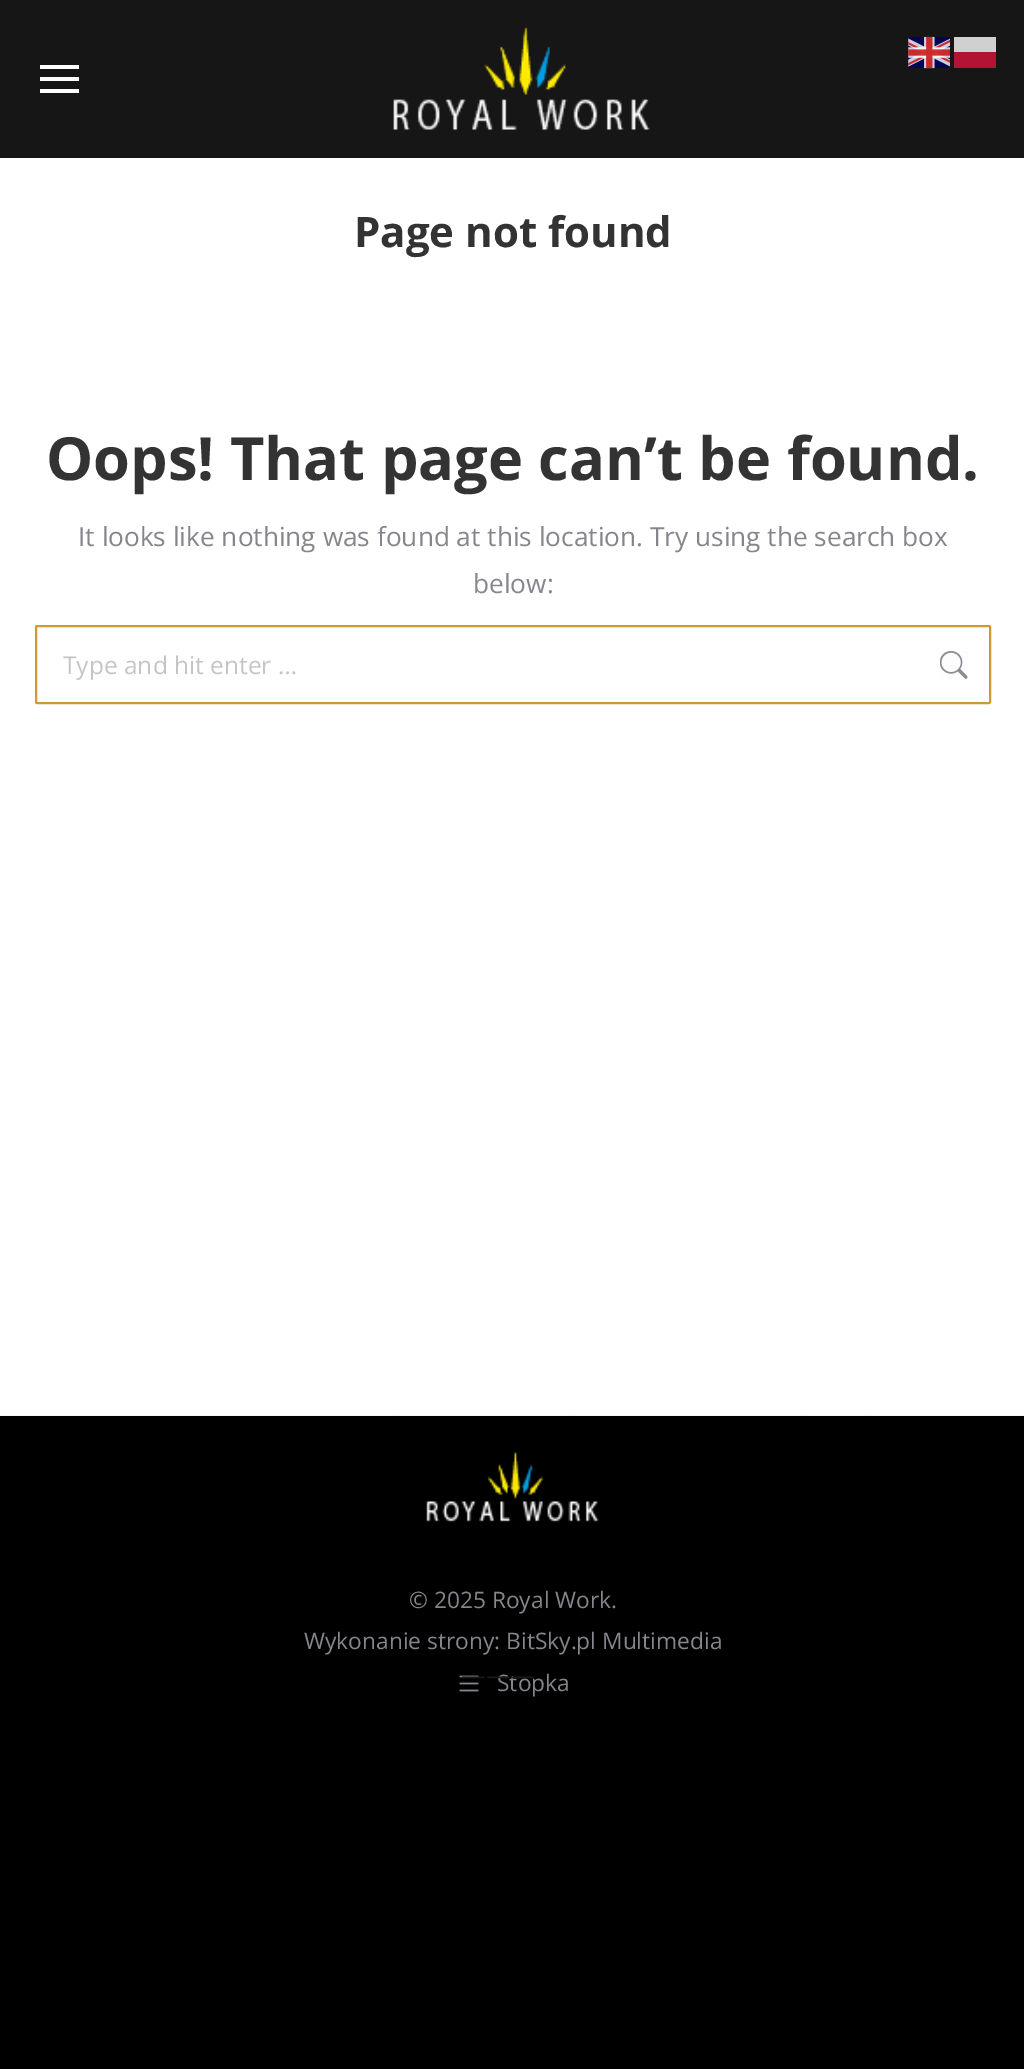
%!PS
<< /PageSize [1024 2069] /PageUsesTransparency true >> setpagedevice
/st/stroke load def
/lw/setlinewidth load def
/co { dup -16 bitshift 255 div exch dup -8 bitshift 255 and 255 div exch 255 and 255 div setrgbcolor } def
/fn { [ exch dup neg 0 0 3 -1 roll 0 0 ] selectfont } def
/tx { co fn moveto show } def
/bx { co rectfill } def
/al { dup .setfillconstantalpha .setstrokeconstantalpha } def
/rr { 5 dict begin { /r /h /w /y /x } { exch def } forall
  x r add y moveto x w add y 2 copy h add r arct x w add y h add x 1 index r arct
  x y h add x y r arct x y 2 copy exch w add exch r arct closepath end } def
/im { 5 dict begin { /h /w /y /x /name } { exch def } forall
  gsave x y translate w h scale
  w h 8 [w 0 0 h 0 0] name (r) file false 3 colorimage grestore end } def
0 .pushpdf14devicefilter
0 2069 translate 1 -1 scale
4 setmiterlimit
0 0 1024 2069 16#000000 bx
0 0 1024 1416 16#FFFFFF bx
0.95 al
0 0 1024 158 16#0A0A0A bx
1 al
(media/1.raw) 908 36 42 33 im
954 37 42 15 16#D0D0D0 bx
954 52 42 16 16#B41434 bx
40 65 39 4 16#FFFFFF bx
40 77 39 4 16#FFFFFF bx
40 89 39 4 16#FFFFFF bx
(media/2.raw) 393 27 257 103 im
16#C99C34 co
2 lw
36 626 954 77 1 rr st
(media/3.raw) 940 651 28 28 im
(media/4.raw) 0 1415 1024 1 im
(media/5.raw) 426 1452 173 70 im
(media/6.raw) 459 1675 20 17 im
(Page not found) 354 247 /OpenSans-Bold 42 16#333333 tx
(Oops! That page can’t be found.) 46 480 /OpenSans-Bold 59.5 16#333333 tx
(It looks like nothing was found at this location. Try using the search box) 78 546 /OpenSans-Regular 26.25 16#85868C tx
(below:) 473 593 /OpenSans-Regular 26.25 16#85868C tx
(Type and hit enter …) 63 674 /OpenSans-Regular 24.5 16#C4C5C9 tx
(© 2025 Royal Work.) 409 1608 /OpenSans-Regular 22.75 16#85868C tx
(Wykonanie strony: BitSky.pl Multimedia) 304 1649 /OpenSans-Regular 22.75 16#85868C tx
(Stopka) 497 1691 /OpenSans-Regular 22.75 16#85868C tx
(———) 461 1684 /OpenSans-Regular 24.5 16#19191A tx
.poppdf14devicefilter showpage
